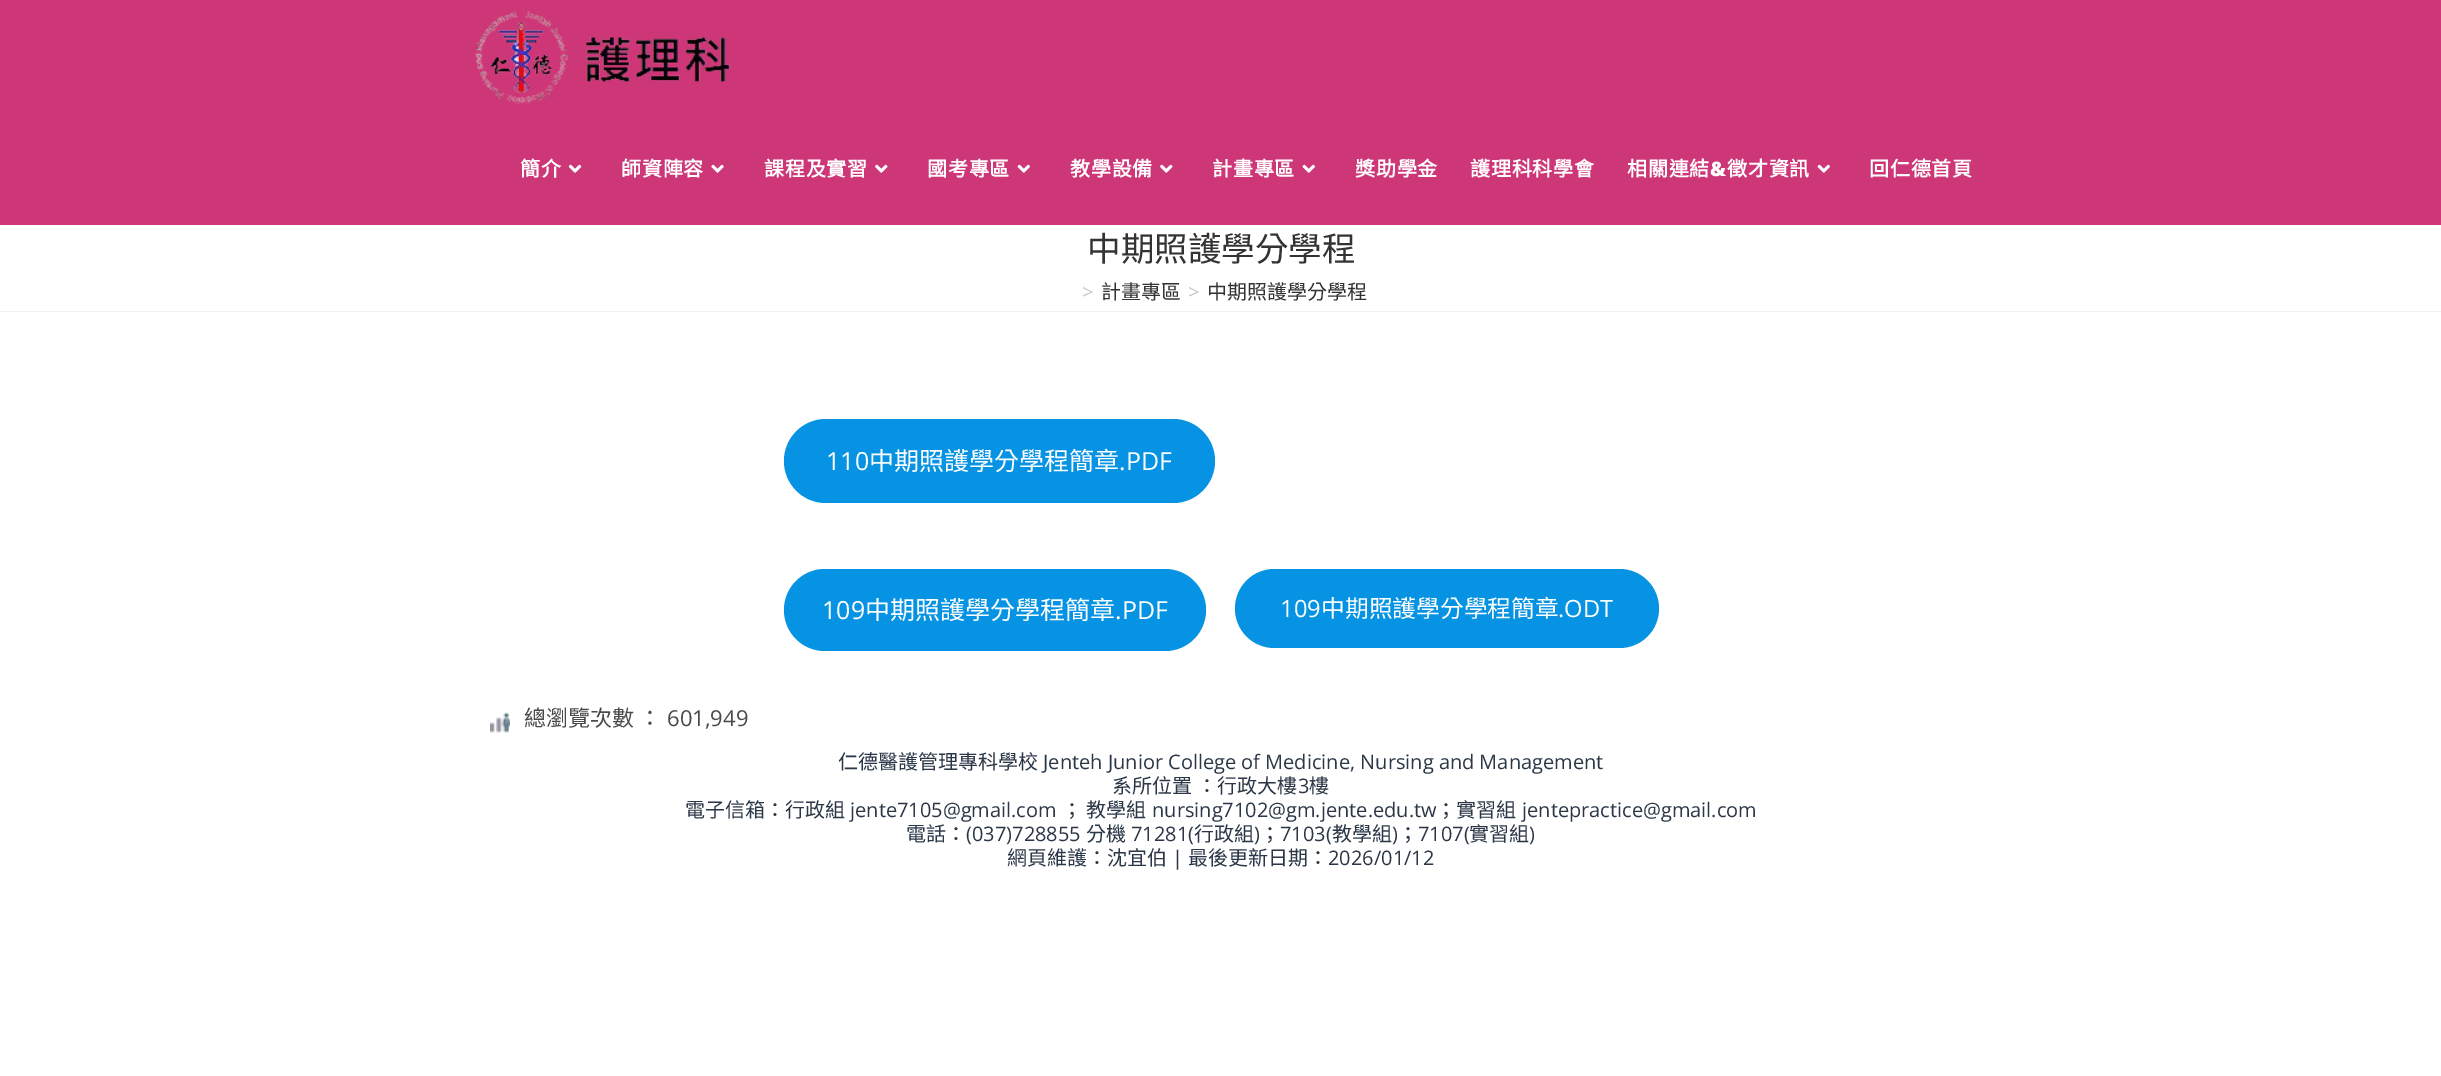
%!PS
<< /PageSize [2441 1076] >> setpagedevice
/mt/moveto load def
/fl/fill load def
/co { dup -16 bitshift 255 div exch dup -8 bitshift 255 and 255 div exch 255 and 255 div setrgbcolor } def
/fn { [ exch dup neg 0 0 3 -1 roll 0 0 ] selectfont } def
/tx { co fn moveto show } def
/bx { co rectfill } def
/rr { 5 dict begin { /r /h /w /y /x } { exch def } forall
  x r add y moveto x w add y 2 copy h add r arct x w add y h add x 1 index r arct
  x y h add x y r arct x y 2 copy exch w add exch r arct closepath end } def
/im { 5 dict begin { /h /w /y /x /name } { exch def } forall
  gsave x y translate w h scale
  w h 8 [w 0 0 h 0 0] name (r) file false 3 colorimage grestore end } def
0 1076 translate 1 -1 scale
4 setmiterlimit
0 0 2441 1076 16#FFFFFF bx
0 0 2441 225 16#CD3777 bx
(media/1.raw) 475 11 256 93 im
(media/2.raw) 568 164 14 9 im
(media/3.raw) 711 164 13 9 im
(media/4.raw) 875 164 13 9 im
(media/5.raw) 1017 164 13 9 im
(media/4.raw) 1160 164 13 9 im
(media/5.raw) 1302 164 13 9 im
(media/5.raw) 1817 164 13 9 im
0 311 2441 1 16#F1F1F1 bx
16#0693E3 co
784 419 431 84 42 rr fl
784 569 422 82 41 rr fl
1235 569 424 79 39.5 rr fl
(media/6.raw) 490 712 20 21 im
/NotoSansCJKTC-Bold 20 fn
16#FFFFFF co
520 176 mt .75 0 (簡介) ashow
621 176 mt .75 0 (師資陣容) ashow
764 176 mt .75 0 (課程及實習) ashow
927 176 mt .75 0 (國考專區) ashow
1070 176 mt .75 0 (教學設備) ashow
1212 176 mt .75 0 (計畫專區) ashow
1355 176 mt .75 0 (獎助學金) ashow
1470 176 mt .75 0 (護理科科學會) ashow
1627 176 mt .75 0 (相關連結) ashow
/OpenSans-ExtraBold 20 fn
1710 176 mt .75 0 (&) ashow
/NotoSansCJKTC-Bold 20 fn
1727 176 mt .75 0 (徵才資訊) ashow
1869 176 mt .75 0 (回仁德首頁) ashow
(中期照護學分學程) 1087 261 /NotoSansCJKTC-Regular 33.5 16#333333 tx
(>) 1082 299 /OpenSans-Regular 20 16#C6C6C6 tx
(計畫專區) 1101 299 /NotoSansCJKTC-Regular 20 16#333333 tx
(>) 1188 299 /OpenSans-Regular 20 16#C6C6C6 tx
(中期照護學分學程) 1207 299 /NotoSansCJKTC-Regular 20 16#333333 tx
(110) 826 470 /OpenSans-Regular 25 16#FFFFFF tx
(中期照護學分學程簡章) 869 470 /NotoSansCJKTC-Regular 25 16#FFFFFF tx
(.PDF) 1119 470 /OpenSans-Regular 25 16#FFFFFF tx
(109) 822 619 /OpenSans-Regular 25 16#FFFFFF tx
(中期照護學分學程簡章) 865 619 /NotoSansCJKTC-Regular 25 16#FFFFFF tx
(.PDF) 1115 619 /OpenSans-Regular 25 16#FFFFFF tx
(109) 1280 617 /OpenSans-Regular 23.75 16#FFFFFF tx
(中期照護學分學程簡章) 1321 617 /NotoSansCJKTC-Regular 23.75 16#FFFFFF tx
(.ODT) 1558 617 /OpenSans-Regular 23.75 16#FFFFFF tx
(總瀏覽次數 ：) 524 726 /NotoSansCJKTC-Regular 22 16#4A4A4A tx
(601,949) 667 726 /OpenSans-Regular 22 16#4A4A4A tx
(仁德醫護管理專科學校) 838 769 /NotoSansCJKTC-Regular 20 16#2B3747 tx
(Jenteh Junior College of Medicine, Nursing and Management) 1043 769 /OpenSans-Regular 20 16#2B3747 tx
/NotoSansCJKTC-Regular 20 fn
1112 793 mt 1 0 32 (系所位置 ：行政大樓) widthshow
(3) 1298 793 /OpenSans-Regular 20 16#2B3747 tx
(樓) 1309 793 /NotoSansCJKTC-Regular 20 16#2B3747 tx
(電子信箱：行政組) 685 817 /NotoSansCJKTC-Regular 20 16#2B3747 tx
(jente7105@gmail.com) 850 817 /OpenSans-Regular 20 16#2B3747 tx
(； 教學組) 1062 817 /NotoSansCJKTC-Regular 20 16#2B3747 tx
(nursing7102@gm.jente.edu.tw) 1152 817 /OpenSans-Regular 20 16#2B3747 tx
(；實習組) 1436 817 /NotoSansCJKTC-Regular 20 16#2B3747 tx
(jentepractice@gmail.com) 1522 817 /OpenSans-Regular 20 16#2B3747 tx
(電話：) 906 841 /NotoSansCJKTC-Regular 20 16#2B3747 tx
(\(037\)728855) 966 841 /OpenSans-Regular 20 16#2B3747 tx
(分機) 1086 841 /NotoSansCJKTC-Regular 20 16#2B3747 tx
(71281\() 1131 841 /OpenSans-Regular 20 16#2B3747 tx
(行政組) 1194 841 /NotoSansCJKTC-Regular 20 16#2B3747 tx
(\)) 1254 841 /OpenSans-Regular 20 16#2B3747 tx
(；) 1260 841 /NotoSansCJKTC-Regular 20 16#2B3747 tx
(7103\() 1280 841 /OpenSans-Regular 20 16#2B3747 tx
(教學組) 1332 841 /NotoSansCJKTC-Regular 20 16#2B3747 tx
(\)) 1392 841 /OpenSans-Regular 20 16#2B3747 tx
(；) 1398 841 /NotoSansCJKTC-Regular 20 16#2B3747 tx
(7107\() 1418 841 /OpenSans-Regular 20 16#2B3747 tx
(實習組) 1469 841 /NotoSansCJKTC-Regular 20 16#2B3747 tx
(\)) 1529 841 /OpenSans-Regular 20 16#2B3747 tx
(網頁維護：沈宜伯) 1007 865 /NotoSansCJKTC-Regular 20 16#2B3747 tx
(|) 1172 865 /OpenSans-Regular 20 16#2B3747 tx
(最後更新日期：) 1188 865 /NotoSansCJKTC-Regular 20 16#2B3747 tx
(2026/01/12) 1328 865 /OpenSans-Regular 20 16#2B3747 tx
showpage
